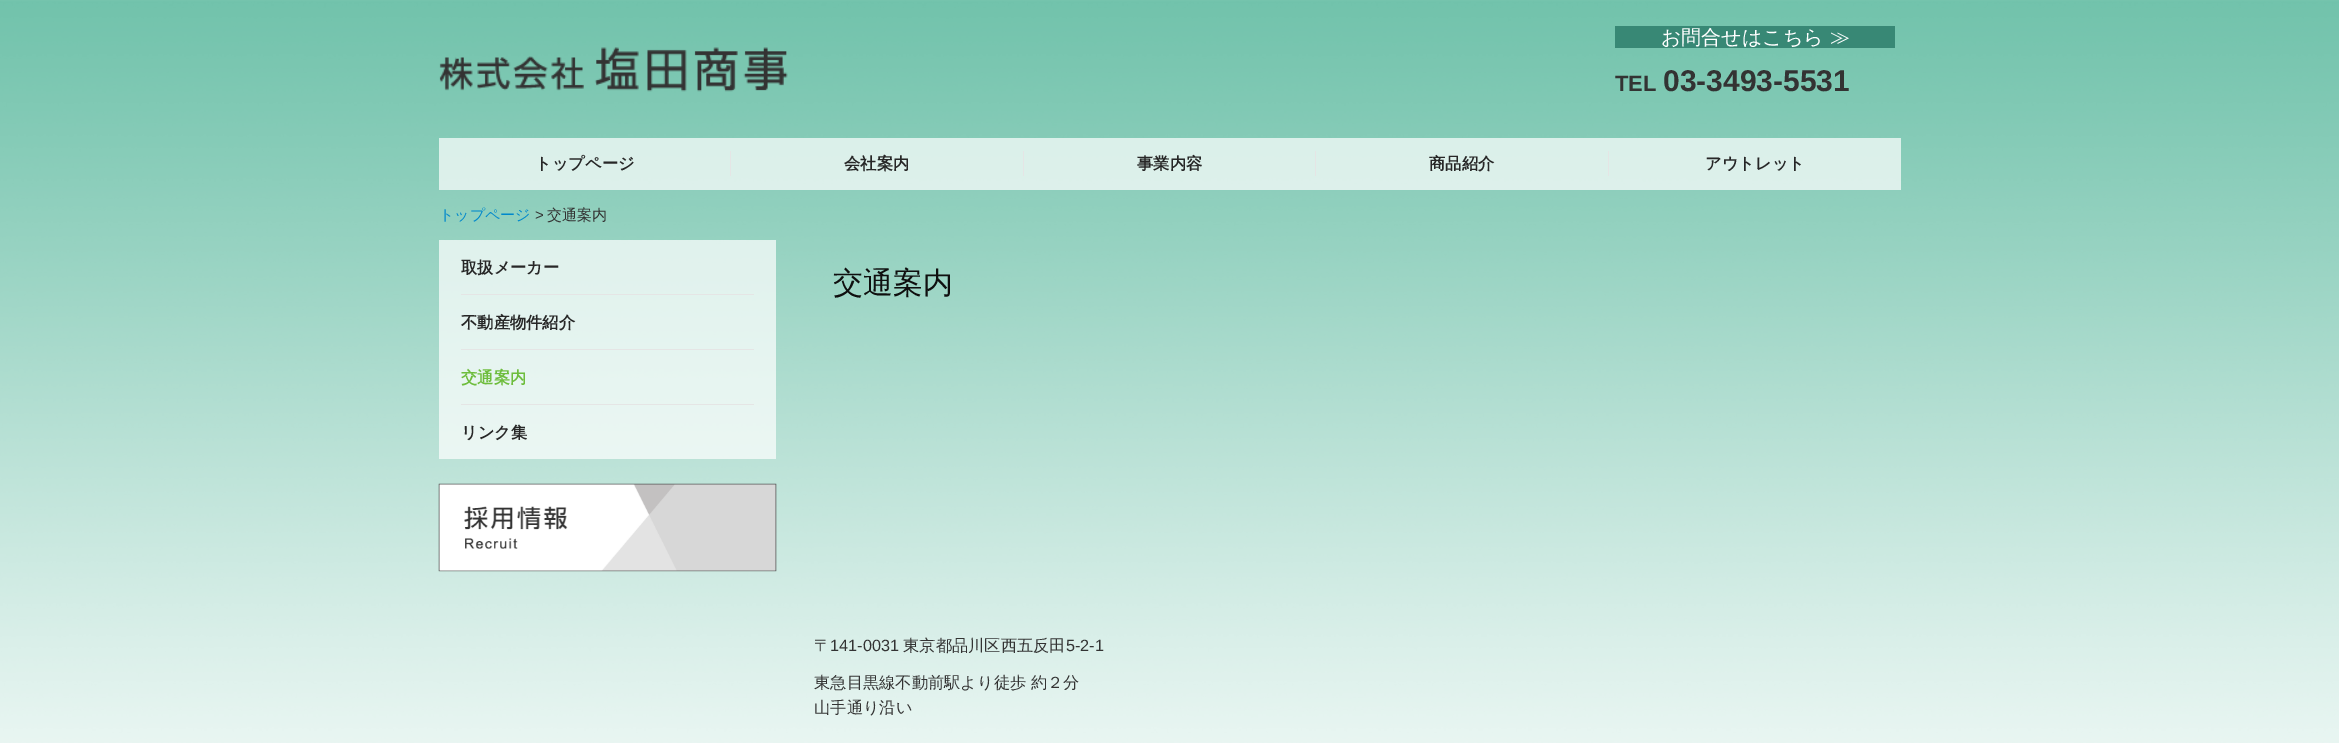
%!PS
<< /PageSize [2339 743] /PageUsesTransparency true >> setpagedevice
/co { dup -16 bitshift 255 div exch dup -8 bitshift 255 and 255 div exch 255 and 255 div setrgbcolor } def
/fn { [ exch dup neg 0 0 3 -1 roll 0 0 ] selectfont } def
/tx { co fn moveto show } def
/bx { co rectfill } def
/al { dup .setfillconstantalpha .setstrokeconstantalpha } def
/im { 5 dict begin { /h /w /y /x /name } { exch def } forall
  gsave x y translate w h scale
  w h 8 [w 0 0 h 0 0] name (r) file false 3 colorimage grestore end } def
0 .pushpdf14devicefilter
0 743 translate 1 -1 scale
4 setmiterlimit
0 0 2339 743 16#FFFFFF bx
(media/1.raw) 0 0 2339 743 im
(media/2.raw) 439 47 349 45 im
1615 26 280 22 16#388875 bx
0.7 al
439 138 1462 52 16#FFFFFF bx
1 al
730 151 1 25 16#E5E5E5 bx
1023 151 1 25 16#E5E5E5 bx
1315 151 1 25 16#E5E5E5 bx
1608 151 1 25 16#E5E5E5 bx
0.7 al
439 240 337 219 16#FFFFFF bx
1 al
461 294 293 1 16#E5E5E5 bx
461 349 293 1 16#E5E5E5 bx
461 404 293 1 16#E5E5E5 bx
(media/3.raw) 438 483 339 89 im
(お問合せはこちら ≫) 1661 44 /WenQuanYiZenHei-Medium 20 16#FFFFFF tx
(TEL) 1615 91 /LiberationSans-Bold 22 16#333333 tx
(03-3493-5531) 1663 91 /LiberationSans-Bold 30 16#333333 tx
(トップページ) 535 169 /WenQuanYiZenHei-Bold 16.25 16#272727 tx
(会社案内) 844 169 /WenQuanYiZenHei-Bold 16.25 16#272727 tx
(事業内容) 1137 169 /WenQuanYiZenHei-Bold 16.25 16#272727 tx
(商品紹介) 1429 169 /WenQuanYiZenHei-Bold 16.25 16#272727 tx
(アウトレット) 1705 169 /WenQuanYiZenHei-Bold 16.25 16#272727 tx
(トップページ) 439 220 /WenQuanYiZenHei-Medium 15 16#0088CC tx
(>) 535 220 /LiberationSans-Regular 15 16#333333 tx
(交通案内) 547 220 /WenQuanYiZenHei-Medium 15 16#333333 tx
(取扱メーカー) 461 273 /WenQuanYiZenHei-Bold 16.25 16#272727 tx
(不動産物件紹介) 461 328 /WenQuanYiZenHei-Bold 16.25 16#272727 tx
(交通案内) 461 383 /WenQuanYiZenHei-Bold 16.25 16#6EBD3D tx
(リンク集) 461 438 /WenQuanYiZenHei-Bold 16.25 16#272727 tx
(交通案内) 833 293 /WenQuanYiZenHei-Medium 30 16#0F0F0F tx
(〒) 814 651 /WenQuanYiZenHei-Medium 16.25 16#333333 tx
(141-0031) 830 651 /LiberationSans-Regular 16.25 16#333333 tx
(東京都品川区西五反田) 903 651 /WenQuanYiZenHei-Medium 16.25 16#333333 tx
(5-2-1) 1066 651 /LiberationSans-Regular 16.25 16#333333 tx
(東急目黒線不動前駅より徒歩 約２分) 814 688 /WenQuanYiZenHei-Medium 16.25 16#333333 tx
(山手通り沿い) 814 713 /WenQuanYiZenHei-Medium 16.25 16#333333 tx
.poppdf14devicefilter showpage
